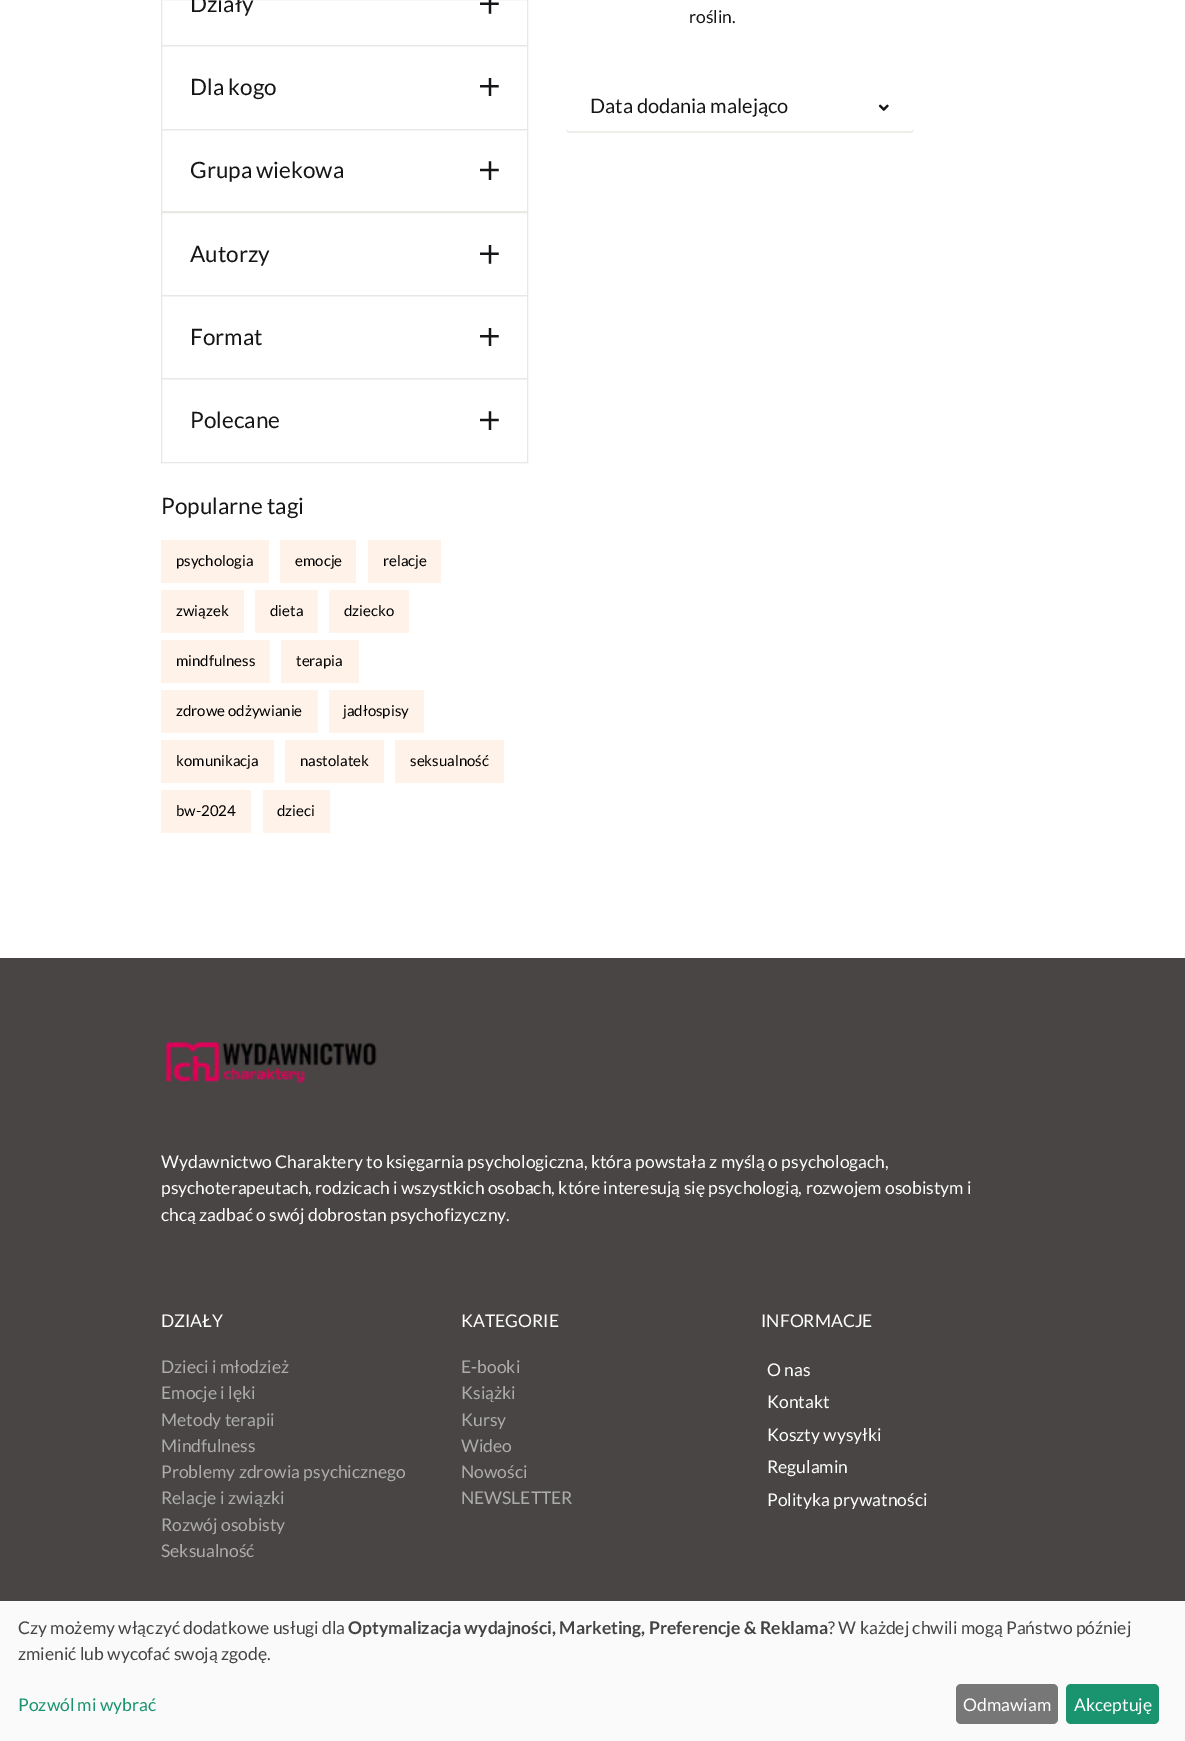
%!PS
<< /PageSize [1185 1741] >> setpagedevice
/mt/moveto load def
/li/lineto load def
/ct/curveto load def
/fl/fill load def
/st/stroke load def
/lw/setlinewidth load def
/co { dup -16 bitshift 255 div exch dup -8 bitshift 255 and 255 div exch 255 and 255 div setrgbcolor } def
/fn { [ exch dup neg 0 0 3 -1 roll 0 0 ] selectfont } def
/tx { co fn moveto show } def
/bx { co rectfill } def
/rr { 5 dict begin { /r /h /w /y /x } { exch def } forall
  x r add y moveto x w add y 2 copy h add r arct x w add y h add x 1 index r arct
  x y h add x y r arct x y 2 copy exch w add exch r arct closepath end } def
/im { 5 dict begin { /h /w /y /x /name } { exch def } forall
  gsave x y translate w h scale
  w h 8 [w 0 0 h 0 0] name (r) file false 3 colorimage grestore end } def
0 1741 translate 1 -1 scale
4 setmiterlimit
0 0 1185 1741 16#FFFFFF bx
16#EAE8E4 co
161.5 -.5 366 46 rectstroke
(media/1.raw) 480 0 19 14 im
161.5 45.5 366 84 rectstroke
(media/2.raw) 480 78 19 18 im
161.5 129.5 366 83 rectstroke
(media/3.raw) 480 161 19 19 im
161.5 211.5 366 84 rectstroke
(media/4.raw) 480 245 19 19 im
161.5 295.5 366 83 rectstroke
(media/2.raw) 480 328 19 18 im
161.5 378.5 366 84 rectstroke
(media/3.raw) 480 411 19 19 im
161 540 108 43 16#FFF2E9 bx
280 540 76 43 16#FFF2E9 bx
368 540 73 43 16#FFF2E9 bx
161 590 83 43 16#FFF2E9 bx
255 590 63 43 16#FFF2E9 bx
329 590 80 43 16#FFF2E9 bx
161 640 109 43 16#FFF2E9 bx
281 640 78 43 16#FFF2E9 bx
161 690 157 43 16#FFF2E9 bx
329 690 95 43 16#FFF2E9 bx
161 740 113 43 16#FFF2E9 bx
285 740 99 43 16#FFF2E9 bx
395 740 109 43 16#FFF2E9 bx
161 790 90 43 16#FFF2E9 bx
263 790 67 43 16#FFF2E9 bx
16#EAE8E4 co
1.2 lw
913 130.5 mt 912.5 131.5 911 132 910 132 ct 570 132 li 569 132 567.5 131.5 567 130.5 ct st
(media/5.raw) 878 104 11 7 im
0 958 1185 643 16#494545 bx
(media/6.raw) 165 1041 212 42 im
0 1601 1185 140 16#FAFAFA bx
16#777777 co
956 1684 102 40 5 rr fl
16#1A936F co
1066 1684 93 40 5 rr fl
(Działy) 190 12 /Lato-Regular 22.5 16#161619 tx
(Dla kogo) 190 95 /Lato-Regular 22.5 16#161619 tx
(Grupa wiekowa) 190 178 /Lato-Regular 22.5 16#161619 tx
(Autorzy) 190 262 /Lato-Regular 22.5 16#161619 tx
(Format) 190 345 /Lato-Regular 22.5 16#161619 tx
(Polecane) 190 428 /Lato-Regular 22.5 16#161619 tx
(Popularne tagi) 161 514 /Lato-Regular 22.5 16#161619 tx
(psychologia) 176 566 /Lato-Regular 15 16#000000 tx
(emocje) 295 566 /Lato-Regular 15 16#000000 tx
(relacje) 383 566 /Lato-Regular 15 16#000000 tx
(związek) 176 616 /Lato-Regular 15 16#000000 tx
(dieta) 270 616 /Lato-Regular 15 16#000000 tx
(dziecko) 344 616 /Lato-Regular 15 16#000000 tx
(mindfulness) 176 666 /Lato-Regular 15 16#000000 tx
(terapia) 296 666 /Lato-Regular 15 16#000000 tx
(zdrowe odżywianie) 176 716 /Lato-Regular 15 16#000000 tx
(jadłospisy) 343 716 /Lato-Regular 15 16#000000 tx
(komunikacja) 176 766 /Lato-Regular 15 16#000000 tx
(nastolatek) 300 766 /Lato-Regular 15 16#000000 tx
(seksualność) 410 766 /Lato-Regular 15 16#000000 tx
(bw-2024) 176 816 /Lato-Regular 15 16#000000 tx
(dzieci) 277 816 /Lato-Regular 15 16#000000 tx
(roślin.) 689 23 /Lato-Regular 17.5 16#161619 tx
(Data dodania malejąco) 590 113 /Lato-Regular 20 16#161619 tx
(Wydawnictwo Charaktery to księgarnia psychologiczna, która powstała z myślą o psychologach,) 161 1168 /Lato-Regular 17.5 16#FFFFFF tx
(psychoterapeutach, rodzicach i wszystkich osobach, które interesują się psychologią, rozwojem osobistym i) 161 1194 /Lato-Regular 17.5 16#FFFFFF tx
(chcą zadbać o swój dobrostan psychofizyczny.) 161 1221 /Lato-Regular 17.5 16#FFFFFF tx
(DZIAŁY) 161 1327 /Lato-Regular 17.5 16#FFFFFF tx
(Dzieci i młodzież) 161 1373 /Lato-Regular 17.5 16#ACACAC tx
(Emocje i lęki) 161 1399 /Lato-Regular 17.5 16#ACACAC tx
(Metody terapii) 161 1426 /Lato-Regular 17.5 16#ACACAC tx
(Mindfulness) 161 1452 /Lato-Regular 17.5 16#ACACAC tx
(Problemy zdrowia psychicznego) 161 1478 /Lato-Regular 17.5 16#ACACAC tx
(Relacje i związki) 161 1504 /Lato-Regular 17.5 16#ACACAC tx
(Rozwój osobisty) 161 1531 /Lato-Regular 17.5 16#ACACAC tx
(Seksualność) 161 1557 /Lato-Regular 17.5 16#ACACAC tx
(KATEGORIE) 461 1327 /Lato-Regular 17.5 16#FFFFFF tx
(E-booki) 461 1373 /Lato-Regular 17.5 16#ACACAC tx
(Książki) 461 1399 /Lato-Regular 17.5 16#ACACAC tx
(Kursy) 461 1426 /Lato-Regular 17.5 16#ACACAC tx
(Wideo) 461 1452 /Lato-Regular 17.5 16#ACACAC tx
(Nowości) 461 1478 /Lato-Regular 17.5 16#ACACAC tx
(NEWSLETTER) 461 1504 /Lato-Regular 17.5 16#ACACAC tx
(INFORMACJE) 761 1327 /Lato-Regular 17.5 16#FFFFFF tx
(O nas) 767 1376 /Lato-Regular 17.5 16#FFFFFF tx
(Kontakt) 767 1408 /Lato-Regular 17.5 16#FFFFFF tx
(Koszty wysyłki) 767 1441 /Lato-Regular 17.5 16#FFFFFF tx
(Regulamin) 767 1473 /Lato-Regular 17.5 16#FFFFFF tx
(Polityka prywatności) 767 1506 /Lato-Regular 17.5 16#FFFFFF tx
(Czy możemy włączyć dodatkowe usługi dla) 18 1634 /Lato-Regular 17.5 16#444444 tx
(Optymalizacja wydajności, Marketing, Preferencje & Reklama) 348 1634 /Lato-Bold 17.5 16#444444 tx
(? W każdej chwili mogą Państwo później) 828 1634 /Lato-Regular 17.5 16#444444 tx
(zmienić lub wycofać swoją zgodę.) 18 1660 /Lato-Regular 17.5 16#444444 tx
(Pozwól mi wybrać) 18 1711 /Lato-Regular 17.5 16#1A936F tx
(Odmawiam) 963 1711 /Lato-Regular 17.5 16#FFFFFF tx
(Akceptuję) 1074 1711 /Lato-Regular 17.5 16#FFFFFF tx
showpage
